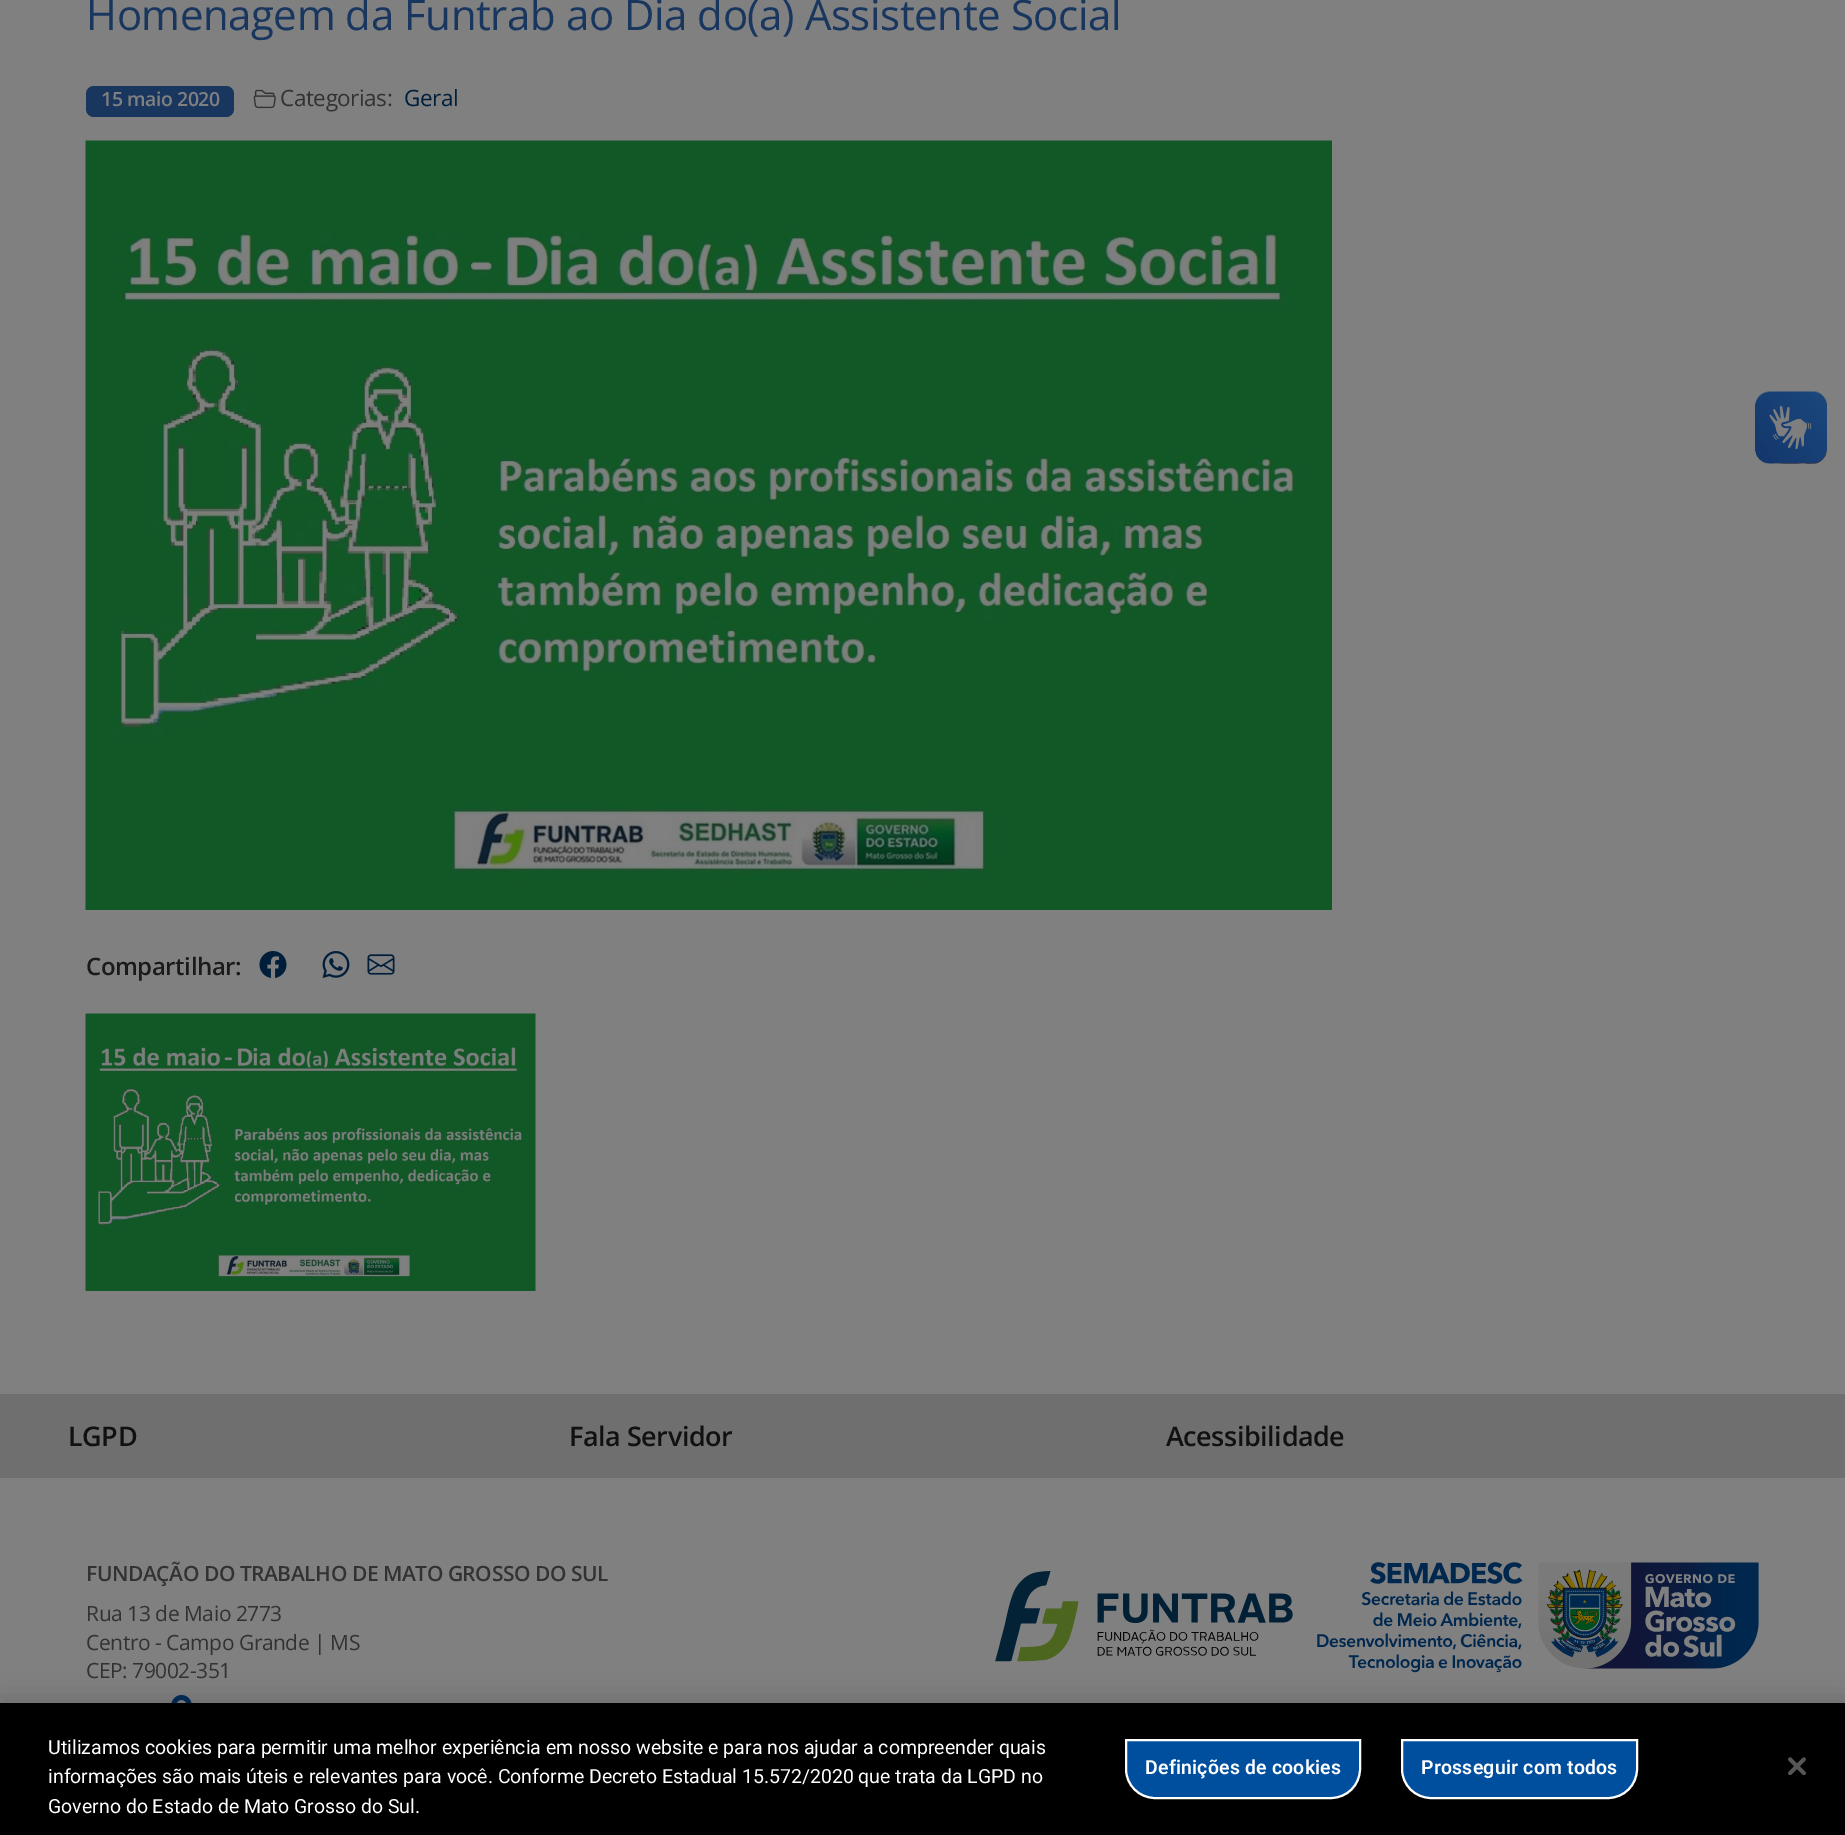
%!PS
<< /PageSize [1845 1835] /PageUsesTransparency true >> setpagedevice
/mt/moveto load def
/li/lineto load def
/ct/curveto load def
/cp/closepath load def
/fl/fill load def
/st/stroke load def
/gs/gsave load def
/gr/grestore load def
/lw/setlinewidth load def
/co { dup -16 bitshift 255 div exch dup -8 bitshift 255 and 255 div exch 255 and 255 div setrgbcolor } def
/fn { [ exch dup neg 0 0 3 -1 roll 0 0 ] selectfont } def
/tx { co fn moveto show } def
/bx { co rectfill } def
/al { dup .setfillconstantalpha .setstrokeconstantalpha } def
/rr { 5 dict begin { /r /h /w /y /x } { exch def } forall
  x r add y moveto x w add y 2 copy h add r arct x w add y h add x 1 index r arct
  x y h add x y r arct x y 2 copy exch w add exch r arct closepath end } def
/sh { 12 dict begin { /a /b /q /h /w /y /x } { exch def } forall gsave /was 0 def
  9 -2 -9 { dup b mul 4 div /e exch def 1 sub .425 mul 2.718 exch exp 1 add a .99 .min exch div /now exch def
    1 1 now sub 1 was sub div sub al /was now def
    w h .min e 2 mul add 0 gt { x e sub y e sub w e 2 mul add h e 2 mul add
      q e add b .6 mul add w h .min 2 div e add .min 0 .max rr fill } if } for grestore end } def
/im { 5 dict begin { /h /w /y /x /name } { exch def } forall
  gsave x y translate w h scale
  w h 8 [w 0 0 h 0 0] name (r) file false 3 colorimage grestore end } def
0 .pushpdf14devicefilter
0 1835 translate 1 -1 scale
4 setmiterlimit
0 0 1845 1835 16#808080 bx
16#19365F co
86 86 148 31 8 rr fl
(media/1.raw) 253 89 23 20 im
(media/2.raw) 85 140 1247 770 im
(media/3.raw) 259 951 28 27 im
(media/4.raw) 322 951 28 27 im
(media/5.raw) 367 954 28 21 im
(media/6.raw) 85 1013 451 278 im
(media/7.raw) 1755 391 72 73 im
(media/8.raw) 1755 392 72 71 im
0 1394 1845 84 16#6F6F6F bx
(media/9.raw) 171 1695 21 8 im
(media/10.raw) 995 1562 764 111 im
16#000000 co
0 1703 1845 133 0 13.5 .2 sh
0 1703 1845 132 16#000000 bx
16#004F9F co
1126 1740 mt 1360 1740 li 1360 1769 li 1360 1785 1347 1798 1331 1798 ct 1155 1798 li 1139 1798 1126 1785 1126 1769 ct cp gs fl gr
16#FFFFFF co
2 lw
st
16#004F9F co
1402 1740 mt 1637 1740 li 1637 1769 li 1637 1785 1624 1798 1608 1798 ct 1431 1798 li 1415 1798 1402 1785 1402 1769 ct cp gs fl gr
16#FFFFFF co
st
(media/11.raw) 1788 1757 18 18 im
/OpenSans-Regular 42 fn
16#19365F co
86 30 mt -.45 0 (Homenagem da Funtrab ao Dia do\(a\) Assistente Social) ashow
/OpenSans-SemiBold 19.5 fn
16#808080 co
101 106 mt -.45 0 (15 maio 2020) ashow
/OpenSans-Regular 22.5 fn
16#323232 co
280 106 mt -.45 0 (Categorias:) ashow
16#001F3B co
404 106 mt -.45 0 (Geral) ashow
/OpenSans-SemiBold 24 fn
16#1A1A1A co
86 975 mt -.45 0 (Compartilhar:) ashow
/OpenSans-SemiBold 27 fn
16#121010 co
68 1446 mt -.45 0 (LGPD) ashow
569 1446 mt -.45 0 (Fala Servidor) ashow
1166 1446 mt -.45 0 (Acessibilidade) ashow
/OpenSans-SemiBold 21 fn
16#323232 co
86 1581 mt -.45 0 (FUNDAÇÃO DO TRABALHO DE MATO GROSSO DO SUL) ashow
/OpenSans-Regular 21 fn
86 1621 mt -.45 0 (Rua 13 de Maio 2773) ashow
86 1650 mt -.45 0 (Centro - Campo Grande | MS) ashow
86 1678 mt -.45 0 (CEP: 79002-351) ashow
(Utilizamos cookies para permitir uma melhor experiência em nosso website e para nos ajudar a compreender quais) 48 1754 /Roboto-Regular 19.5 16#FFFFFF tx
(informações são mais úteis e relevantes para você. Conforme Decreto Estadual 15.572/2020 que trata da LGPD no) 48 1783 /Roboto-Regular 19.5 16#FFFFFF tx
(Governo do Estado de Mato Grosso do Sul.) 48 1813 /Roboto-Regular 19.5 16#FFFFFF tx
/Roboto-SemiBold 19.5 fn
1145 1774 mt .2 0 (Definições de cookies) ashow
1421 1774 mt .2 0 (Prosseguir com todos) ashow
.poppdf14devicefilter showpage
